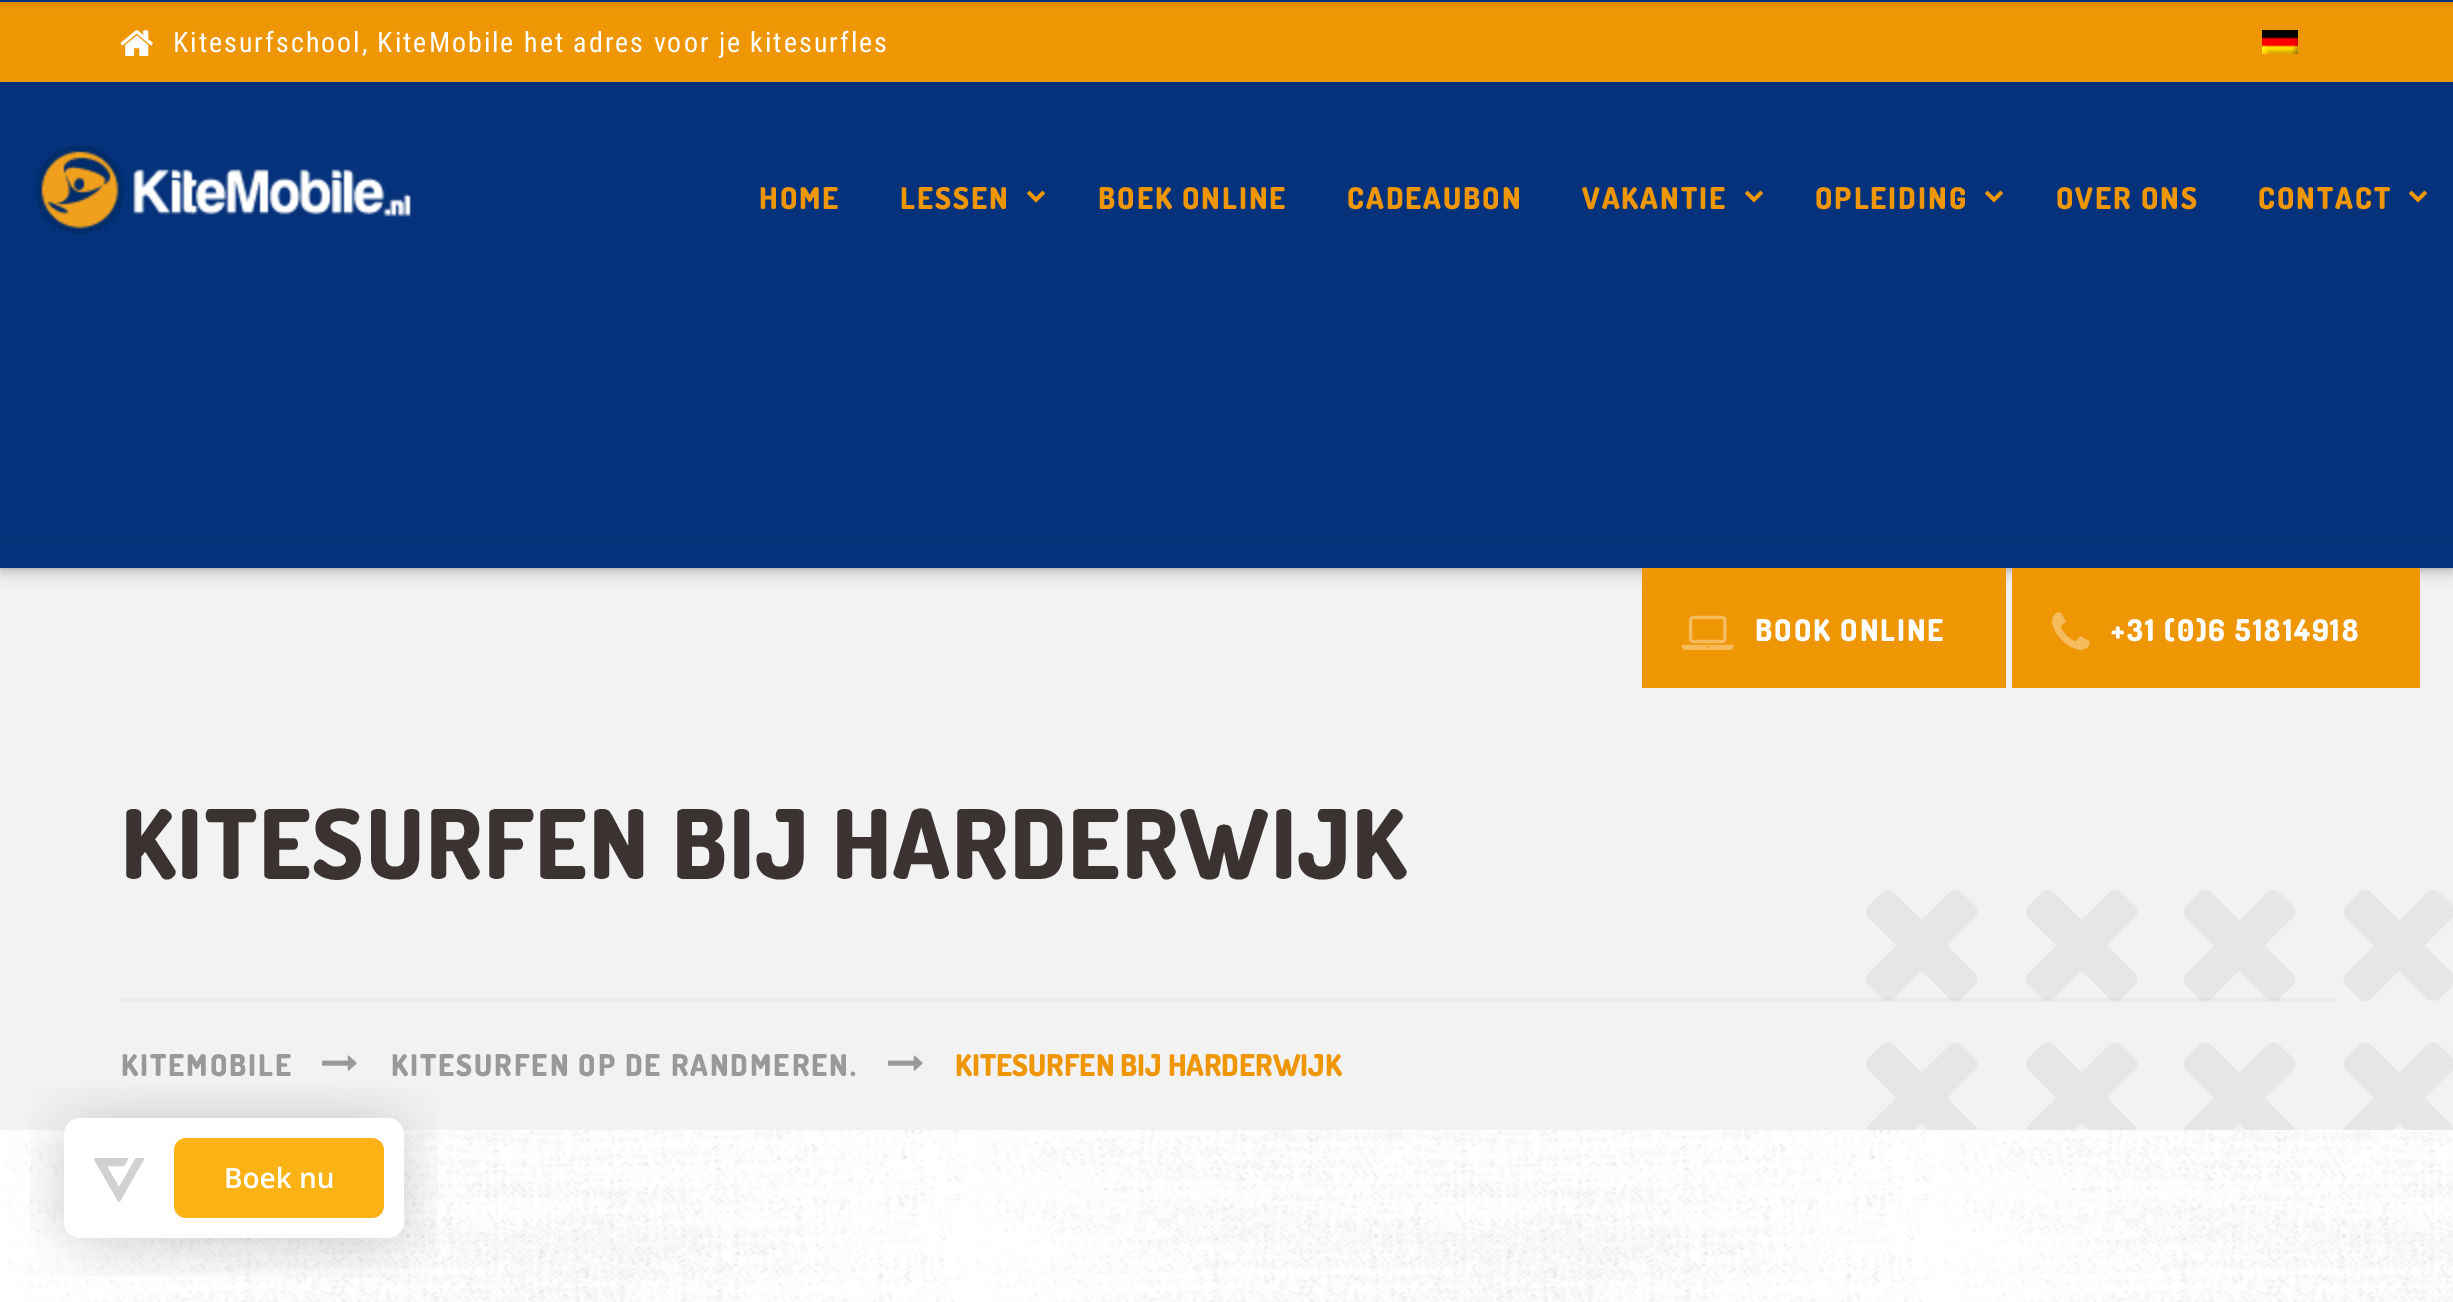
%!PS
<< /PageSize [2453 1302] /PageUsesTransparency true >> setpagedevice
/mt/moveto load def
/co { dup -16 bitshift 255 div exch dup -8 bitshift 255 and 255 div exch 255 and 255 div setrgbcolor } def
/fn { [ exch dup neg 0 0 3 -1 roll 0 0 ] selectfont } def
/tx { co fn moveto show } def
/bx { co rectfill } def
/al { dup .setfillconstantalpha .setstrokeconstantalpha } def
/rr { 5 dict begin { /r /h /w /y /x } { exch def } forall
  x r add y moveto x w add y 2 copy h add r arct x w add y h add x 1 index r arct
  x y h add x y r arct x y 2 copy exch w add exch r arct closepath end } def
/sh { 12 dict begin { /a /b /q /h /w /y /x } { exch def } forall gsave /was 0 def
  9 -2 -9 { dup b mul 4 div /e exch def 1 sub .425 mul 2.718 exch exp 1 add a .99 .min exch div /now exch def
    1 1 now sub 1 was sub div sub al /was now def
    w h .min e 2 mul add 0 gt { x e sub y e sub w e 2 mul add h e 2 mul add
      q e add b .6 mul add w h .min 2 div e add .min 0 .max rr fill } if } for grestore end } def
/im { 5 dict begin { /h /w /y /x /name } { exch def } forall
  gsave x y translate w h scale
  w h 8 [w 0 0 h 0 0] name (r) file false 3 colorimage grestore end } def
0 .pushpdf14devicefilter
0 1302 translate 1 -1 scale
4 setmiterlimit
0 0 2453 1302 16#FFFFFF bx
0 568 2453 562 16#F2F2F2 bx
16#000000 co
0 88 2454 486 0 7 .15 sh
0 80 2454 486 0 4 .35 sh
0 2 2453 80 16#EF9605 bx
16#000000 co
0 -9 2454 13 0 3 .1 sh
0 0 2453 2 16#05327A bx
(media/1.raw) 0 1130 2453 172 im
(media/2.raw) 120 30 33 26 im
(media/3.raw) 2262 30 36 24 im
0 86 2453 482 16#05327A bx
0 82 2453 4 16#053176 bx
(media/4.raw) 35 145 376 90 im
(media/5.raw) 1027 190 18 13 im
(media/5.raw) 1745 190 18 13 im
(media/5.raw) 1985 190 18 13 im
(media/5.raw) 2409 190 18 13 im
1642 568 364 120 16#EF9605 bx
(media/6.raw) 1682 615 52 35 im
2012 568 408 120 16#EF9605 bx
(media/7.raw) 2052 612 38 38 im
0 540 2453 4 16#053176 bx
(media/9.raw) 1866 890 587 240 im
0.03 al
120 998 2214 4 16#000000 bx
1 al
(media/8.raw) 322 1055 35 16 im
(media/8.raw) 888 1055 35 16 im
(media/10.raw) 30 1087 408 190 im
/RobotoCondensed-Regular 28 fn
16#FFFFFF co
173 52 mt 2 0 (Kitesurfschool, KiteMobile het adres voor je kitesurfles) ashow
/Dosis-ExtraBold 30 fn
16#EF9605 co
759 209 mt 2 0 (HOME) ashow
900 209 mt 2 0 (LESSEN) ashow
1098 209 mt 2 0 (BOEK ONLINE) ashow
1347 209 mt 2 0 (CADEAUBON) ashow
1582 209 mt 2 0 (VAKANTIE) ashow
1815 209 mt 2 0 (OPLEIDING) ashow
2056 209 mt 2 0 (OVER ONS) ashow
2258 209 mt 2 0 (CONTACT) ashow
16#FFFFFF co
1755 641 mt 2 0 (BOOK ONLINE) ashow
2111 641 mt 2 0 (+31 \(0\)6 51814918) ashow
/Dosis-ExtraBold 96 fn
16#3B3331 co
121 879 mt 2 0 (KITESURFEN BIJ HARDERWIJK) ashow
/Dosis-ExtraBold 30 fn
16#999999 co
121 1076 mt 2 0 (KITEMOBILE) ashow
391 1076 mt 2 0 (KITESURFEN OP DE RANDMEREN.) ashow
(KITESURFEN BIJ HARDERWIJK) 955 1076 /Dosis-ExtraBold 30 16#EF9605 tx
.poppdf14devicefilter showpage
